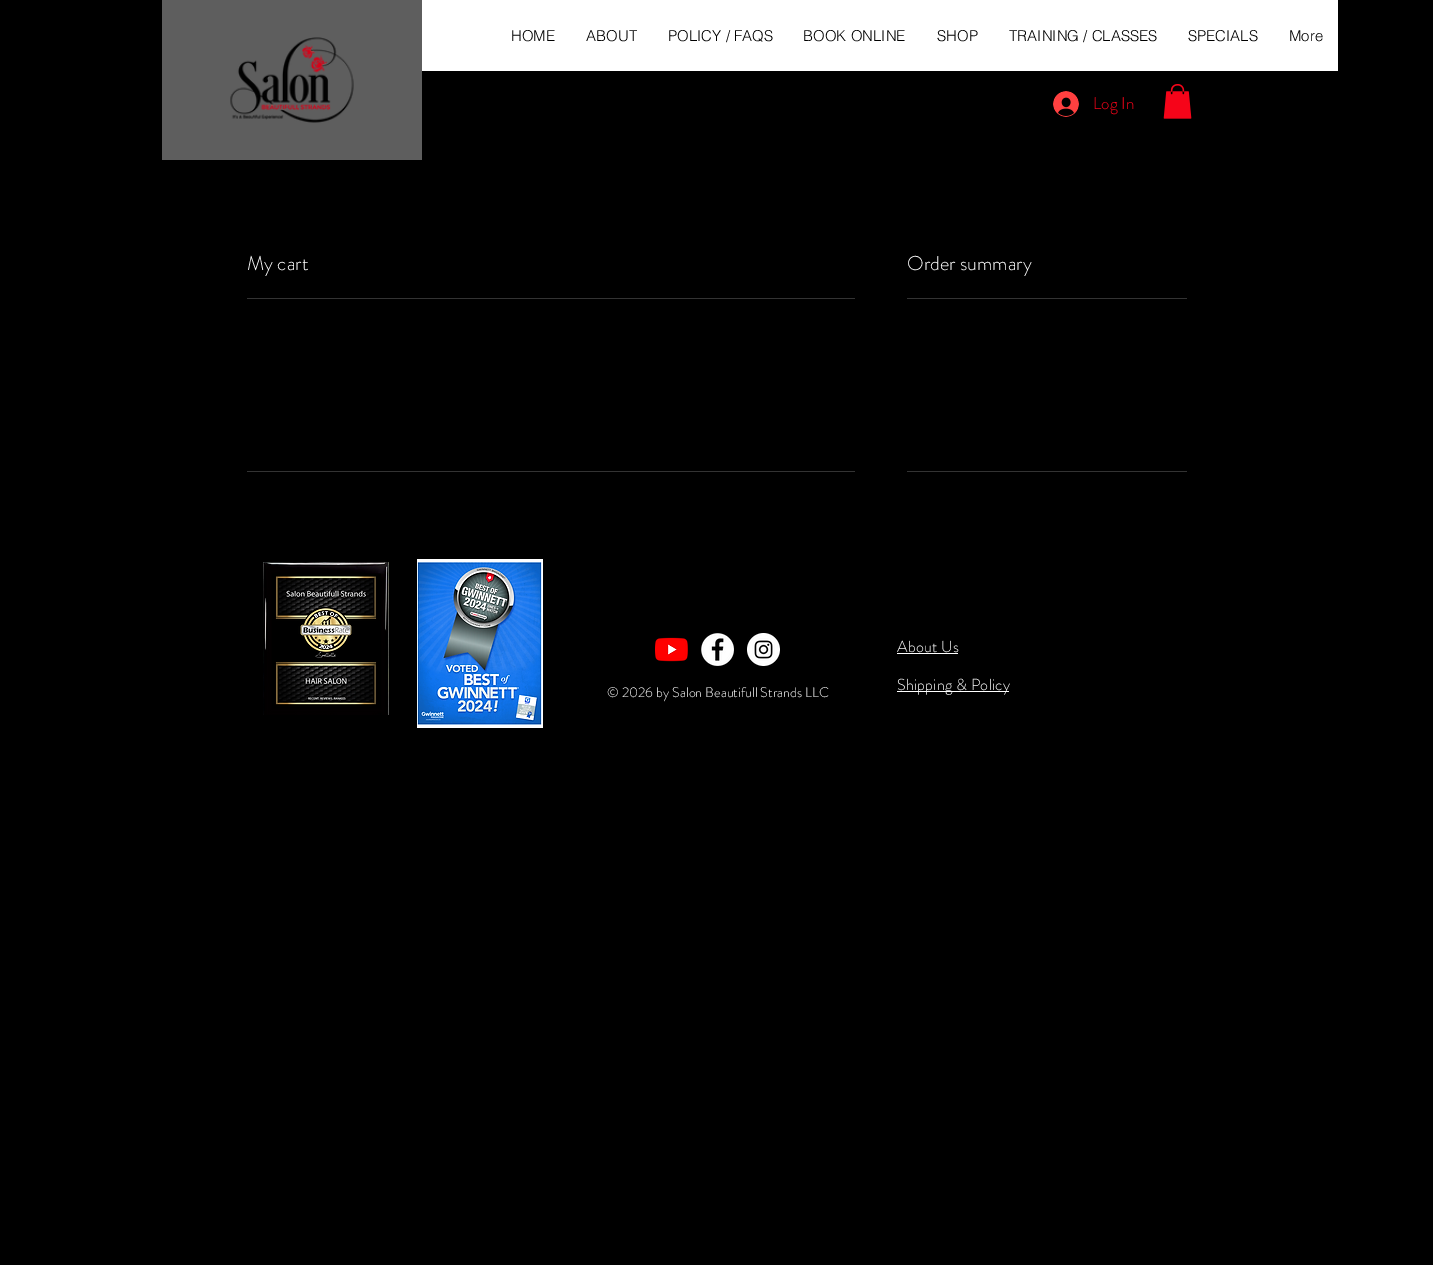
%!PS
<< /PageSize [1433 1265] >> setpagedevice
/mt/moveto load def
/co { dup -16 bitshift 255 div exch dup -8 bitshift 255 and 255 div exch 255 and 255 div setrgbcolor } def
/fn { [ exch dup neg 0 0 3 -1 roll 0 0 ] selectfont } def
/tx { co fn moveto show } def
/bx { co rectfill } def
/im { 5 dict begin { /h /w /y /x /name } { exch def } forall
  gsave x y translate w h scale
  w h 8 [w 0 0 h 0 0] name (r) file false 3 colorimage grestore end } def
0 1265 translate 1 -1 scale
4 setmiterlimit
0 0 1433 1265 16#000000 bx
162 0 260 160 16#5E5E5E bx
(media/1.raw) 230 37 124 86 im
422 0 916 71 16#FFFFFF bx
(media/2.raw) 1053 91 26 26 im
(media/3.raw) 1163 84 29 35 im
247 298 608 1 16#333333 bx
247 471 608 1 16#333333 bx
907 298 280 1 16#333333 bx
907 471 280 1 16#333333 bx
(media/4.raw) 263 562 126 153 im
(media/5.raw) 417 559 126 169 im
(media/6.raw) 655 637 33 25 im
(media/7.raw) 701 633 33 33 im
(media/8.raw) 747 633 33 33 im
897 653 61 1 16#FFFFFF bx
897 691 112 1 16#FFFFFF bx
(HOME) 511 41 /helvetica-Light 15 16#000000 tx
(ABOUT) 586 41 /helvetica-Light 15 16#000000 tx
(POLICY / FAQS) 668 41 /helvetica-Light 15 16#000000 tx
(BOOK ONLINE) 803 41 /helvetica-Light 15 16#000000 tx
(SHOP) 937 41 /helvetica-Light 15 16#000000 tx
(TRAINING / CLASSES) 1009 41 /helvetica-Light 15 16#000000 tx
(SPECIALS) 1188 41 /helvetica-Light 15 16#000000 tx
(More) 1289 41 /helvetica-Light 15 16#000000 tx
(Log In) 1093 109 /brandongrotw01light-Light 17 16#F60419 tx
(My cart) 247 270 /brandongrotw01light-Light 20 16#FFFFFF tx
(Order summary) 907 270 /brandongrotw01light-Light 20 16#FFFFFF tx
/brandongrotw01light-Light 16 fn
897 652 mt .2 0 (About Us) ashow
(© 2026 by Salon Beautifull Strands LLC) 607 697 /brandongrotw01light-Light 14 16#FFFFFF tx
/brandongrotw01light-Light 16 fn
897 690 mt .2 0 (Shipping & Policy) ashow
showpage
